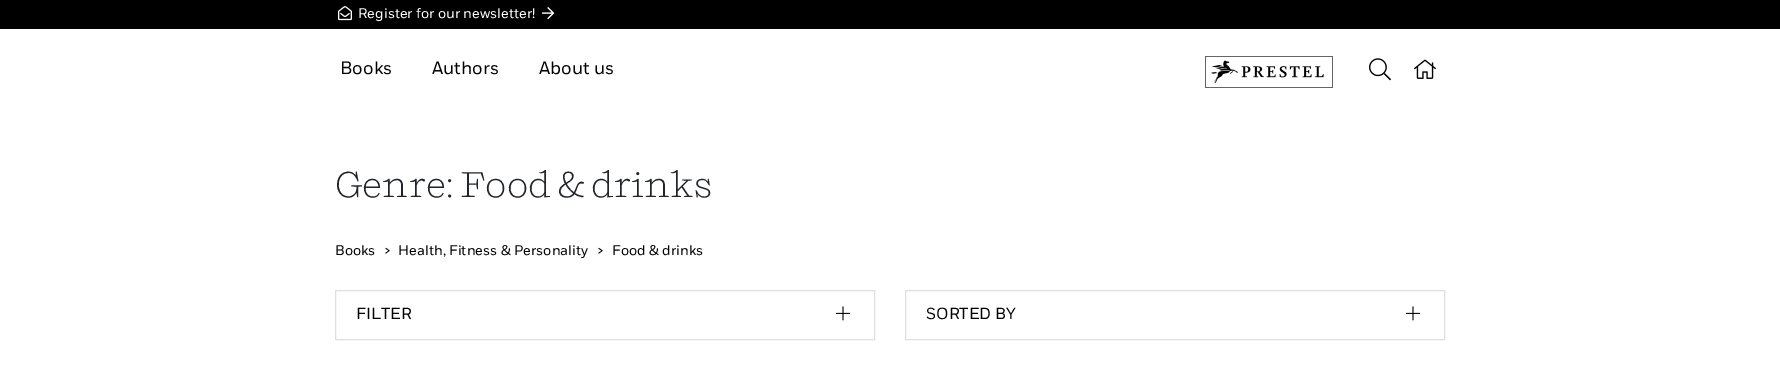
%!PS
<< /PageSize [1780 368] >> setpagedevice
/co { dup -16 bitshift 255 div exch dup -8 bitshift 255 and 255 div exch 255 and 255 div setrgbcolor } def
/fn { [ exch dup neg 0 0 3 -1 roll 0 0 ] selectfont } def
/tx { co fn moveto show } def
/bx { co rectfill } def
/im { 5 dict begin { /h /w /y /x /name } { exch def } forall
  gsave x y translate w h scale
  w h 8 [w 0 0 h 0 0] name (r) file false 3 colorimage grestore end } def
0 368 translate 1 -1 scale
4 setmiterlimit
0 0 1780 368 16#FFFFFF bx
0 0 1780 29 16#000000 bx
(media/1.raw) 338 6 14 15 im
(media/2.raw) 542 7 13 13 im
(media/3.raw) 1205 56 128 32 im
(media/4.raw) 1369 58 22 23 im
(media/5.raw) 1414 59 22 20 im
16#DFDFDF co
335.5 290.5 539 49 rectstroke
(media/6.raw) 836 306 14 15 im
905.5 290.5 539 49 rectstroke
(media/6.raw) 1406 306 14 15 im
(Register for our newsletter!) 358 18 /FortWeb-Regular 14 16#FFFFFF tx
(Books) 340 74 /FortWeb-Regular 18 16#000000 tx
(Authors) 432 74 /FortWeb-Regular 18 16#000000 tx
(About us) 539 74 /FortWeb-Regular 18 16#000000 tx
(Genre: Food & drinks) 335 197 /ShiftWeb-Light 36 16#212529 tx
(Books) 335 255 /FortWeb-Regular 14 16#000000 tx
(>) 384 255 /FortWeb-Regular 14 16#000000 tx
(Health, Fitness & Personality) 398 255 /FortWeb-Regular 14 16#000000 tx
(>) 597 255 /FortWeb-Regular 14 16#000000 tx
(Food & drinks) 612 255 /FortWeb-Regular 14 16#000000 tx
(FILTER) 356 319 /FortWeb-Regular 16 16#000000 tx
(SORTED BY) 926 319 /FortWeb-Regular 16 16#000000 tx
showpage
